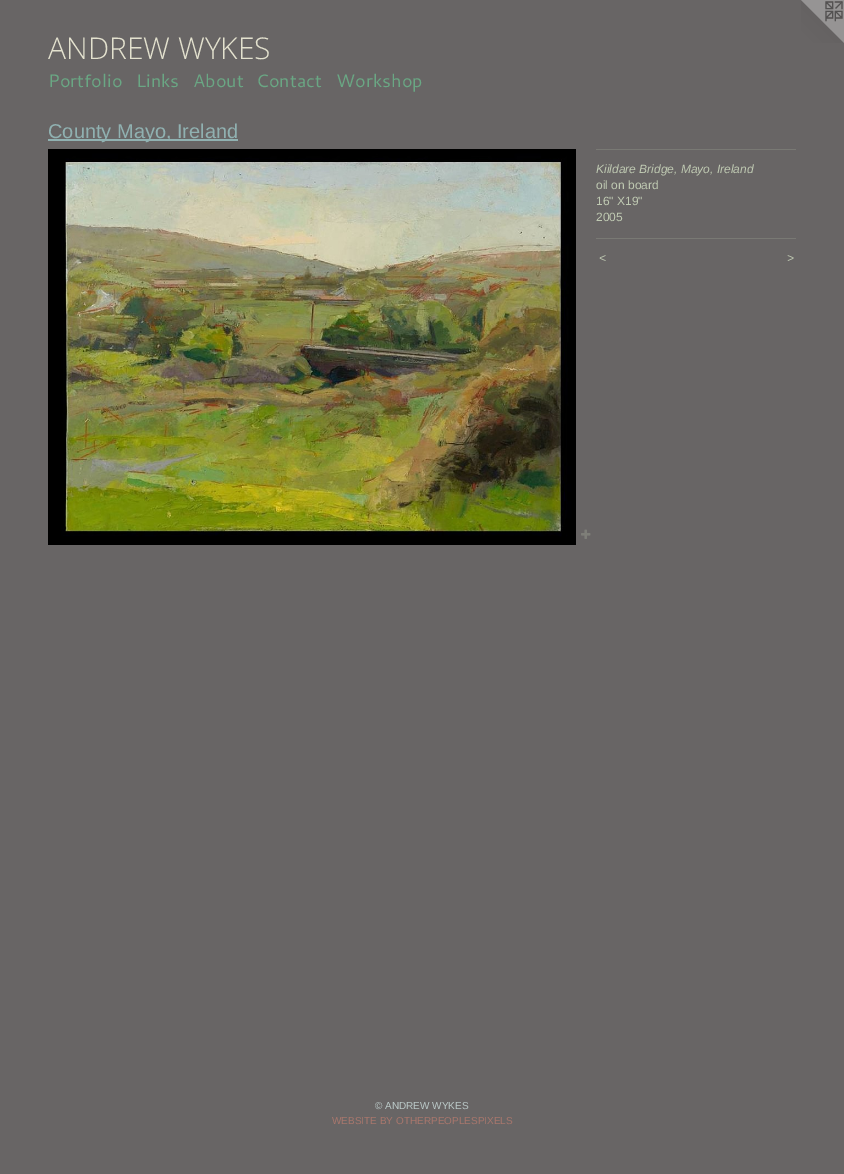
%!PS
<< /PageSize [844 1174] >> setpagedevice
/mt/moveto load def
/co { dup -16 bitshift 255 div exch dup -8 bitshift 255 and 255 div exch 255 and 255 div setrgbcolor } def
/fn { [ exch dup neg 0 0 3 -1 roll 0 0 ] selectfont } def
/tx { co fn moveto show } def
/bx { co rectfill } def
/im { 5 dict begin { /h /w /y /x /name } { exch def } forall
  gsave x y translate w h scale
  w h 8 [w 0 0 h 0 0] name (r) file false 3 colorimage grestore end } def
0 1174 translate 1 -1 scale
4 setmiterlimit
0 0 844 1174 16#686565 bx
(media/1.raw) 801 0 43 43 im
48 139 190 2 16#90B1B1 bx
(media/2.raw) 48 149 528 396 im
(media/3.raw) 581 529 10 10 im
596 149 200 1 16#797974 bx
596 238 200 1 16#797974 bx
(ANDREW WYKES) 48 59 /OpenSans-Light 30 16#E3E1CE tx
(Portfolio) 48 87 /Cantarell-Regular 18 16#6AA784 tx
(Links) 136 87 /Cantarell-Regular 18 16#6AA784 tx
(About) 193 87 /Cantarell-Regular 18 16#6AA784 tx
(Contact) 256 87 /Cantarell-Regular 18 16#6AA784 tx
(Workshop) 336 87 /Cantarell-Regular 18 16#6AA784 tx
(County Mayo, Ireland) 48 138 /Arimo-Regular 20 16#90B1B1 tx
(Kiildare Bridge, Mayo, Ireland) 596 173 /LiberationSans-Italic 12 16#BFC9B2 tx
(oil on board) 596 189 /LiberationSans-Regular 12 16#BFC9B2 tx
(16" X19") 596 205 /LiberationSans-Regular 12 16#BFC9B2 tx
(2005) 596 221 /LiberationSans-Regular 12 16#BFC9B2 tx
/LiberationSans-Italic 12 fn
599 262 mt 1 0 (<) ashow
787 262 mt 1 0 (>) ashow
(© ANDREW WYKES) 375 1109 /LiberationSans-Regular 10 16#BBC9C8 tx
(WEBSITE BY OTHERPEOPLESPIXELS) 332 1124 /LiberationSans-Regular 10 16#A9776D tx
showpage
